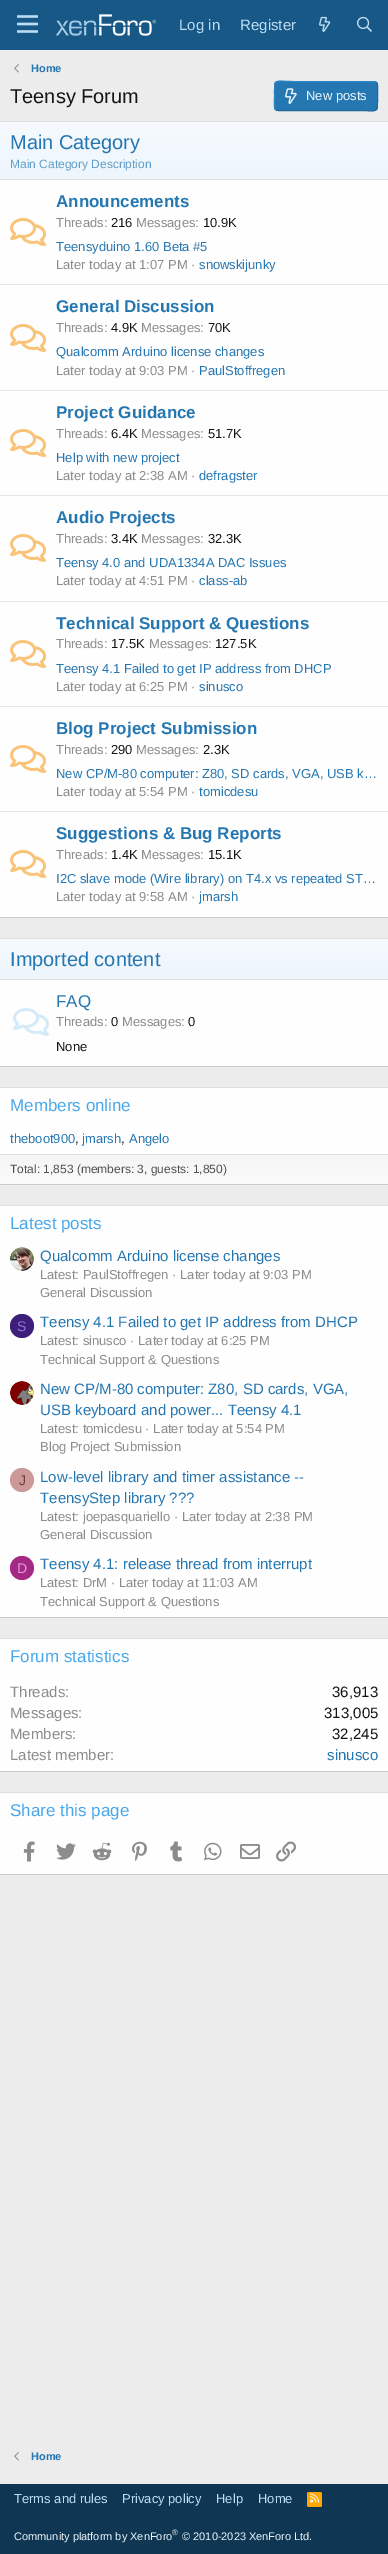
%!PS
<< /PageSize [388 2554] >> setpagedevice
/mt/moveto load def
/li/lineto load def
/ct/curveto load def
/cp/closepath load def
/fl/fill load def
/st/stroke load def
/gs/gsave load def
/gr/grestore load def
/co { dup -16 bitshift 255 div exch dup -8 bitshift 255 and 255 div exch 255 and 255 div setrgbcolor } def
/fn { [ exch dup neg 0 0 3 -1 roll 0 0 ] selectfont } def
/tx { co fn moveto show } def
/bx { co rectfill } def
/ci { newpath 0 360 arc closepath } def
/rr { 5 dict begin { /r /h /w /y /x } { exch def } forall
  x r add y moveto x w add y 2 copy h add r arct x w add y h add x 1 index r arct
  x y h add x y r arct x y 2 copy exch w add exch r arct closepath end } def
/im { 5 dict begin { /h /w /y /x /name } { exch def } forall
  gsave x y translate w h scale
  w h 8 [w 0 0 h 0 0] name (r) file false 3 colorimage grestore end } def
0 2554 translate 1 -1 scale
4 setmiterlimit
0 0 388 2554 16#ECECEC bx
0 0 388 50 16#185886 bx
(media/1.raw) 17 15 21 18 im
(media/2.raw) 56 14 100 22 im
(media/3.raw) 319 16 12 16 im
(media/4.raw) 357 16 15 16 im
(media/5.raw) 14 64 5 9 im
16#2577B1 co
274 81 104 30 4 rr fl
16#21699C co
376.5 82.5 mt 378.5 84.5 377.5 93 377.5 96 ct 377.5 114.5 379 110.5 358 110.5 ct 278 110.5 li 275.5 109.5 li st
16#2985C6 co
275.5 109.5 mt 273.5 107.5 274.5 99 274.5 96 ct 274.5 77.5 273 81.5 294 81.5 ct 374 81.5 li 376.5 82.5 li st
(media/6.raw) 285 88 12 16 im
0 180 388 737 16#FEFEFE bx
0 121 388 1 16#DFDFDF bx
0 917 388 1 16#CBCBCB bx
gs 0 122 mt 388 122 li 388 179 li 0 179 li cp clip newpath
<< /ShadingType 2 /ColorSpace /DeviceRGB /Coords [194 179 194 122] /Extend [true true] /Function << /FunctionType 2 /Domain [0 1] /C0 [.929 .965 .992] /C1 [.965 .98 .996] /N 1 >> >> shfill gr
0 179 388 1 16#DFDFDF bx
(media/7.raw) 10 218 36 28 im
0 284 388 1 16#E7E7E7 bx
(media/7.raw) 10 324 36 28 im
0 390 388 1 16#E7E7E7 bx
(media/7.raw) 10 429 36 28 im
0 495 388 1 16#E7E7E7 bx
(media/7.raw) 10 534 36 28 im
0 601 388 1 16#E7E7E7 bx
(media/7.raw) 10 640 36 28 im
0 706 388 1 16#E7E7E7 bx
(media/7.raw) 10 745 36 28 im
0 811 388 1 16#E7E7E7 bx
(media/7.raw) 10 850 36 28 im
0 980 388 86 16#FEFEFE bx
0 938 388 1 16#DFDFDF bx
0 1066 388 1 16#CBCBCB bx
gs 0 939 mt 388 939 li 388 979 li 0 979 li cp clip newpath
<< /ShadingType 2 /ColorSpace /DeviceRGB /Coords [194 979 194 939] /Extend [true true] /Function << /FunctionType 2 /Domain [0 1] /C0 [.929 .965 .992] /C1 [.965 .98 .996] /N 1 >> >> shfill gr
0 979 388 1 16#DFDFDF bx
(media/8.raw) 13 1008 36 28 im
0 1088 388 66 16#FEFEFE bx
0 1087 388 1 16#DFDFDF bx
0 1184 388 1 16#CBCBCB bx
gs 0 1155 mt 388 1155 li 388 1184 li 0 1184 li cp clip newpath
<< /ShadingType 2 /ColorSpace /DeviceRGB /Coords [194 1155 194 1184] /Extend [true true] /Function << /FunctionType 2 /Domain [0 1] /C0 [.961 .961 .961] /C1 [.98 .98 .98] /N 1 >> >> shfill gr
0 1154 388 1 16#DFDFDF bx
0 1206 388 411 16#FEFEFE bx
0 1205 388 1 16#DFDFDF bx
0 1617 388 1 16#CBCBCB bx
(media/9.raw) 10 1247 24 24 im
16#3D1F7A co
22 1326 12 ci fl
(media/10.raw) 10 1381 24 24 im
16#CC9999 co
22 1480 12 ci fl
16#A32985 co
22 1568 12 ci fl
0 1639 388 132 16#FEFEFE bx
0 1638 388 1 16#DFDFDF bx
0 1771 388 1 16#CBCBCB bx
0 1793 388 81 16#FEFEFE bx
0 1792 388 1 16#DFDFDF bx
0 1874 388 1 16#CBCBCB bx
(media/11.raw) 23 1841 12 21 im
(media/12.raw) 56 1843 20 17 im
(media/13.raw) 92 1842 20 19 im
(media/14.raw) 132 1841 15 21 im
(media/15.raw) 170 1841 13 21 im
(media/16.raw) 204 1842 18 19 im
(media/17.raw) 240 1844 20 15 im
(media/18.raw) 276 1841 20 21 im
(media/5.raw) 14 2452 5 9 im
0 2484 388 70 16#0F3652 bx
16#FFA500 co
307 2492 15 15 2 rr fl
(media/19.raw) 310 2493 10 10 im
(Log in) 179 30 /LiberationSans-Regular 15 16#BCDEF5 tx
(Register) 240 30 /LiberationSans-Regular 15 16#BCDEF5 tx
(Home) 31 72 /LiberationSans-Bold 11 16#2577B1 tx
(Teensy Forum) 10 103 /LiberationSans-Regular 20 16#141414 tx
(New posts) 306 100 /LiberationSans-Regular 13 16#EDF6FD tx
(Main Category) 10 149 /LiberationSans-Regular 20 16#2577B1 tx
(Main Category Description) 10 168 /LiberationSans-Regular 12 16#629DC8 tx
(Announcements) 56 207 /LiberationSans-Bold 17 16#2577B1 tx
(Threads:) 56 227 /LiberationSans-Regular 13 16#8C8C8C tx
(216) 111 227 /LiberationSans-Regular 13 16#141414 tx
(Messages:) 136 227 /LiberationSans-Regular 13 16#8C8C8C tx
(10.9K) 203 227 /LiberationSans-Regular 13 16#141414 tx
(Teensyduino 1.60 Beta #5) 56 251 /LiberationSans-Regular 13 16#2577B1 tx
(Later today at 1:07 PM ·) 56 269 /LiberationSans-Regular 13 16#8C8C8C tx
(snowskijunky) 199 269 /LiberationSans-Regular 13 16#2577B1 tx
(General Discussion) 56 312 /LiberationSans-Bold 17 16#2577B1 tx
(Threads:) 56 332 /LiberationSans-Regular 13 16#8C8C8C tx
(4.9K) 111 332 /LiberationSans-Regular 13 16#141414 tx
(Messages:) 141 332 /LiberationSans-Regular 13 16#8C8C8C tx
(70K) 208 332 /LiberationSans-Regular 13 16#141414 tx
(Qualcomm Arduino license changes) 56 356 /LiberationSans-Regular 13 16#2577B1 tx
(Later today at 9:03 PM ·) 56 375 /LiberationSans-Regular 13 16#8C8C8C tx
(PaulStoffregen) 199 375 /LiberationSans-Regular 13 16#2577B1 tx
(Project Guidance) 56 418 /LiberationSans-Bold 17 16#2577B1 tx
(Threads:) 56 438 /LiberationSans-Regular 13 16#8C8C8C tx
(6.4K) 111 438 /LiberationSans-Regular 13 16#141414 tx
(Messages:) 141 438 /LiberationSans-Regular 13 16#8C8C8C tx
(51.7K) 208 438 /LiberationSans-Regular 13 16#141414 tx
(Help with new project) 56 462 /LiberationSans-Regular 13 16#2577B1 tx
(Later today at 2:38 AM ·) 56 480 /LiberationSans-Regular 13 16#8C8C8C tx
(defragster) 199 480 /LiberationSans-Regular 13 16#2577B1 tx
(Audio Projects) 56 523 /LiberationSans-Bold 17 16#2577B1 tx
(Threads:) 56 543 /LiberationSans-Regular 13 16#8C8C8C tx
(3.4K) 111 543 /LiberationSans-Regular 13 16#141414 tx
(Messages:) 141 543 /LiberationSans-Regular 13 16#8C8C8C tx
(32.3K) 208 543 /LiberationSans-Regular 13 16#141414 tx
(Teensy 4.0 and UDA1334A DAC Issues) 56 567 /LiberationSans-Regular 13 16#2577B1 tx
(Later today at 4:51 PM ·) 56 585 /LiberationSans-Regular 13 16#8C8C8C tx
(class-ab) 199 585 /LiberationSans-Regular 13 16#2577B1 tx
(Technical Support & Questions) 56 629 /LiberationSans-Bold 17 16#2577B1 tx
(Threads:) 56 648 /LiberationSans-Regular 13 16#8C8C8C tx
(17.5K) 111 648 /LiberationSans-Regular 13 16#141414 tx
(Messages:) 149 648 /LiberationSans-Regular 13 16#8C8C8C tx
(127.5K) 215 648 /LiberationSans-Regular 13 16#141414 tx
(Teensy 4.1 Failed to get IP address from DHCP) 56 673 /LiberationSans-Regular 13 16#2577B1 tx
(Later today at 6:25 PM ·) 56 691 /LiberationSans-Regular 13 16#8C8C8C tx
(sinusco) 199 691 /LiberationSans-Regular 13 16#2577B1 tx
(Blog Project Submission) 56 734 /LiberationSans-Bold 17 16#2577B1 tx
(Threads:) 56 754 /LiberationSans-Regular 13 16#8C8C8C tx
(290) 111 754 /LiberationSans-Regular 13 16#141414 tx
(Messages:) 136 754 /LiberationSans-Regular 13 16#8C8C8C tx
(2.3K) 203 754 /LiberationSans-Regular 13 16#141414 tx
(New CP/M-80 computer: Z80, SD cards, VGA, USB k…) 56 778 /LiberationSans-Regular 13 16#2577B1 tx
(Later today at 5:54 PM ·) 56 796 /LiberationSans-Regular 13 16#8C8C8C tx
(tomicdesu) 199 796 /LiberationSans-Regular 13 16#2577B1 tx
(Suggestions & Bug Reports) 56 839 /LiberationSans-Bold 17 16#2577B1 tx
(Threads:) 56 859 /LiberationSans-Regular 13 16#8C8C8C tx
(1.4K) 111 859 /LiberationSans-Regular 13 16#141414 tx
(Messages:) 141 859 /LiberationSans-Regular 13 16#8C8C8C tx
(15.1K) 208 859 /LiberationSans-Regular 13 16#141414 tx
(I2C slave mode \(Wire library\) on T4.x vs repeated ST…) 56 883 /LiberationSans-Regular 13 16#2577B1 tx
(Later today at 9:58 AM ·) 56 901 /LiberationSans-Regular 13 16#8C8C8C tx
(jmarsh) 199 901 /LiberationSans-Regular 13 16#2577B1 tx
(Imported content) 10 966 /LiberationSans-Regular 20 16#2577B1 tx
(FAQ) 56 1007 /LiberationSans-Regular 17 16#2577B1 tx
(Threads:) 56 1026 /LiberationSans-Regular 13 16#8C8C8C tx
(0) 111 1026 /LiberationSans-Regular 13 16#141414 tx
(Messages:) 122 1026 /LiberationSans-Regular 13 16#8C8C8C tx
(0) 188 1026 /LiberationSans-Regular 13 16#141414 tx
(None) 56 1051 /LiberationSans-Regular 13 16#141414 tx
(Members online) 10 1111 /LiberationSans-Regular 17 16#47A7EB tx
(theboot900) 10 1143 /LiberationSans-Regular 13 16#2577B1 tx
(,) 75 1143 /LiberationSans-Regular 13 16#141414 tx
(jmarsh) 82 1143 /LiberationSans-Regular 13 16#2577B1 tx
(,) 121 1143 /LiberationSans-Regular 13 16#141414 tx
(Angelo) 129 1143 /LiberationSans-Regular 13 16#2577B1 tx
(Total: 1,853 \(members: 3, guests: 1,850\)) 10 1173 /LiberationSans-Regular 12 16#505050 tx
(Latest posts) 10 1229 /LiberationSans-Regular 17 16#47A7EB tx
(Qualcomm Arduino license changes) 40 1261 /LiberationSans-Regular 15 16#2577B1 tx
(Latest: PaulStoffregen · Later today at 9:03 PM) 40 1279 /LiberationSans-Regular 13 16#8C8C8C tx
(General Discussion) 40 1297 /LiberationSans-Regular 13 16#8C8C8C tx
(S) 17 1331 /LiberationSans-Regular 14 16#9470DB tx
(Teensy 4.1 Failed to get IP address from DHCP) 40 1327 /LiberationSans-Regular 15 16#2577B1 tx
(Latest: sinusco · Later today at 6:25 PM) 40 1345 /LiberationSans-Regular 13 16#8C8C8C tx
(Technical Support & Questions) 40 1364 /LiberationSans-Regular 13 16#8C8C8C tx
(New CP/M-80 computer: Z80, SD cards, VGA,) 40 1394 /LiberationSans-Regular 15 16#2577B1 tx
(USB keyboard and power... Teensy 4.1) 40 1415 /LiberationSans-Regular 15 16#2577B1 tx
(Latest: tomicdesu · Later today at 5:54 PM) 40 1433 /LiberationSans-Regular 13 16#8C8C8C tx
(Blog Project Submission) 40 1451 /LiberationSans-Regular 13 16#8C8C8C tx
(J) 19 1485 /LiberationSans-Regular 14 16#773C3C tx
(Low-level library and timer assistance --) 40 1482 /LiberationSans-Regular 15 16#2577B1 tx
(TeensyStep library ???) 40 1503 /LiberationSans-Regular 15 16#2577B1 tx
(Latest: joepasquariello · Later today at 2:38 PM) 40 1521 /LiberationSans-Regular 13 16#8C8C8C tx
(General Discussion) 40 1539 /LiberationSans-Regular 13 16#8C8C8C tx
(D) 17 1573 /LiberationSans-Regular 14 16#E699D2 tx
(Teensy 4.1: release thread from interrupt) 40 1569 /LiberationSans-Regular 15 16#2577B1 tx
(Latest: DrM · Later today at 11:03 AM) 40 1587 /LiberationSans-Regular 13 16#8C8C8C tx
(Technical Support & Questions) 40 1606 /LiberationSans-Regular 13 16#8C8C8C tx
(Forum statistics) 10 1662 /LiberationSans-Regular 17 16#47A7EB tx
(Threads:) 10 1697 /LiberationSans-Regular 15 16#8C8C8C tx
(36,913) 332 1697 /LiberationSans-Regular 15 16#141414 tx
(Messages:) 10 1718 /LiberationSans-Regular 15 16#8C8C8C tx
(313,005) 324 1718 /LiberationSans-Regular 15 16#141414 tx
(Members:) 10 1739 /LiberationSans-Regular 15 16#8C8C8C tx
(32,245) 332 1739 /LiberationSans-Regular 15 16#141414 tx
(Latest member:) 10 1760 /LiberationSans-Regular 15 16#8C8C8C tx
(sinusco) 327 1760 /LiberationSans-Regular 15 16#2577B1 tx
(Share this page) 10 1816 /LiberationSans-Regular 17 16#47A7EB tx
(Home) 31 2460 /LiberationSans-Bold 11 16#2577B1 tx
(Terms and rules) 14 2503 /LiberationSans-Regular 13 16#BCDEF5 tx
(Privacy policy) 122 2503 /LiberationSans-Regular 13 16#BCDEF5 tx
(Help) 216 2503 /LiberationSans-Regular 13 16#BCDEF5 tx
(Home) 258 2503 /LiberationSans-Regular 13 16#BCDEF5 tx
(Community platform by XenForo) 14 2540 /LiberationSans-Regular 11 16#EDF6FD tx
(®) 172 2535 /LiberationSans-Regular 8 16#EDF6FD tx
(© 2010-2023 XenForo Ltd.) 182 2540 /LiberationSans-Regular 11 16#EDF6FD tx
showpage
